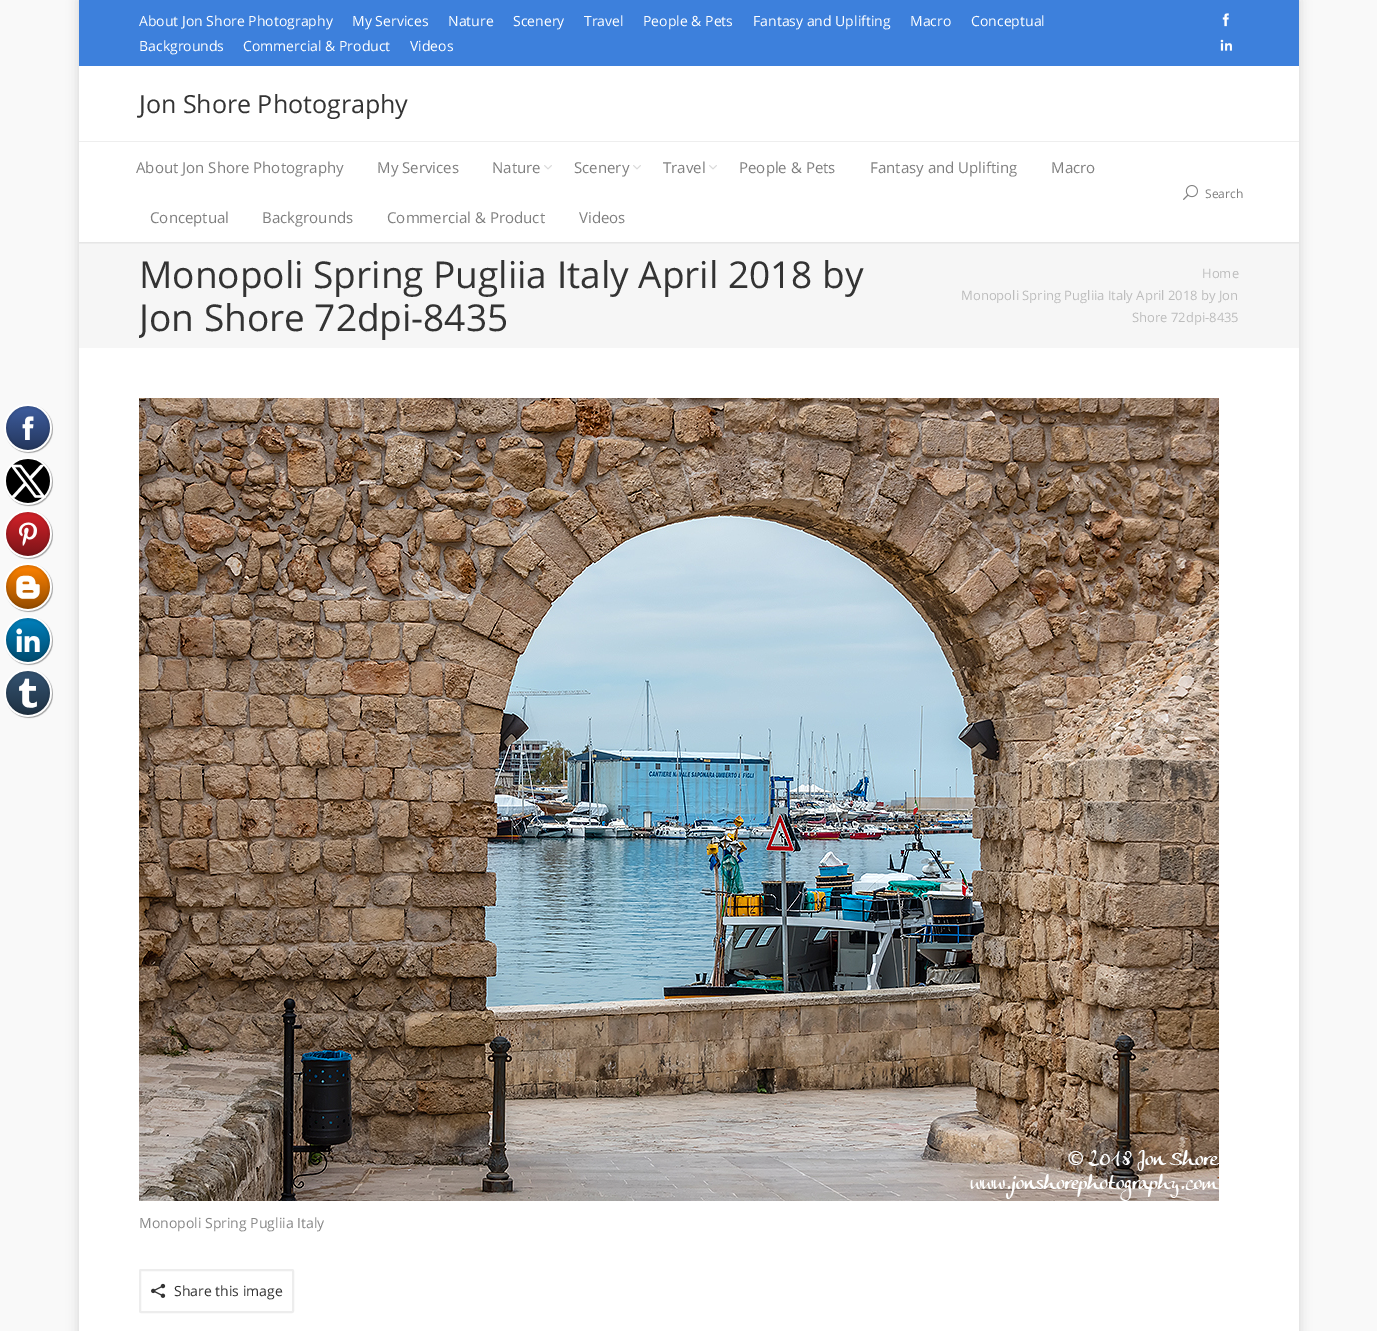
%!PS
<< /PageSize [1377 1331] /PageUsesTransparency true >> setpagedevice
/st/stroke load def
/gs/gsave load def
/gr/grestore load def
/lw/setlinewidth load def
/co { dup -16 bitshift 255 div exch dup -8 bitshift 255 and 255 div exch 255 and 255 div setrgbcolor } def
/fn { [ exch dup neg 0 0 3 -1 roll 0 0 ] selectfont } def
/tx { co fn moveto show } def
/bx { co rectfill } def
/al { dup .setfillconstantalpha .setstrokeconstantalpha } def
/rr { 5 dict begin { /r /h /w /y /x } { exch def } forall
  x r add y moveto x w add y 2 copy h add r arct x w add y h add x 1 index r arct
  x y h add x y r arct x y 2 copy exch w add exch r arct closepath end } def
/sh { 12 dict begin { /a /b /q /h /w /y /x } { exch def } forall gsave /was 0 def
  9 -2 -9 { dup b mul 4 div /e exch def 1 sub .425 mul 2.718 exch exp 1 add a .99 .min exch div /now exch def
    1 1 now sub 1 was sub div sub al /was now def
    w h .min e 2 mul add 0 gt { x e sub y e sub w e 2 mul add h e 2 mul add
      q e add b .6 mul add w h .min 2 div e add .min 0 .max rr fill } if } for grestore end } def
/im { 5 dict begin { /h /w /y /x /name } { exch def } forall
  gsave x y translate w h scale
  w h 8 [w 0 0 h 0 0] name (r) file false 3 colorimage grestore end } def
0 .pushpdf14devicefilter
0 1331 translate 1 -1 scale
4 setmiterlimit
0 0 1377 1331 16#F9F9F9 bx
(media/1.raw) 4 404 49 315 im
16#000000 co
79 0 1220 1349 0 6 .15 sh
79 66 1220 1265 16#FFFFFF bx
79 242 1220 106 16#F6F6F6 bx
gs
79 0 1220 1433 rectclip
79 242 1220 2 rectclip
16#000000 co
79 0 1220 242 0 2 .15 sh
gr
79 0 1220 66 16#3D80DC bx
(media/2.raw) 1222 13 7 14 im
(media/3.raw) 1220 39 12 12 im
79 141 1220 1 16#EEEEEE bx
(media/4.raw) 544 165 8 5 im
(media/4.raw) 633 165 8 5 im
(media/4.raw) 709 165 8 5 im
(media/5.raw) 1183 185 15 15 im
(media/6.raw) 139 398 1080 803 im
(media/7.raw) 151 1283 15 15 im
16#EDEDED co
2 lw
140 1270 153 42 1 rr st
(About Jon Shore Photography) 139 26 /OpenSans-Regular 14 16#FFFFFF tx
(My Services) 352 26 /OpenSans-Regular 14 16#FFFFFF tx
(Nature) 448 26 /OpenSans-Regular 14 16#FFFFFF tx
(Scenery) 513 26 /OpenSans-Regular 14 16#FFFFFF tx
(Travel) 584 26 /OpenSans-Regular 14 16#FFFFFF tx
(People & Pets) 643 26 /OpenSans-Regular 14 16#FFFFFF tx
(Fantasy and Uplifting) 753 26 /OpenSans-Regular 14 16#FFFFFF tx
(Macro) 910 26 /OpenSans-Regular 14 16#FFFFFF tx
(Conceptual) 971 26 /OpenSans-Regular 14 16#FFFFFF tx
(Backgrounds) 139 51 /OpenSans-Regular 14 16#FFFFFF tx
(Commercial & Product) 243 51 /OpenSans-Regular 14 16#FFFFFF tx
(Videos) 410 51 /OpenSans-Regular 14 16#FFFFFF tx
(Jon Shore Photography) 139 113 /OpenSans-Regular 25 16#333333 tx
(About Jon Shore Photography) 136 173 /OpenSans-Regular 15 16#7F7F7F tx
(My Services) 377 173 /OpenSans-Regular 15 16#7F7F7F tx
(Nature) 492 173 /OpenSans-Regular 15 16#7F7F7F tx
(Scenery) 574 173 /OpenSans-Regular 15 16#7F7F7F tx
(Travel) 663 173 /OpenSans-Regular 15 16#7F7F7F tx
(People & Pets) 739 173 /OpenSans-Regular 15 16#7F7F7F tx
(Fantasy and Uplifting) 870 173 /OpenSans-Regular 15 16#7F7F7F tx
(Macro) 1051 173 /OpenSans-Regular 15 16#7F7F7F tx
(Conceptual) 150 223 /OpenSans-Regular 15 16#7F7F7F tx
(Backgrounds) 262 223 /OpenSans-Regular 15 16#7F7F7F tx
(Commercial & Product) 387 223 /OpenSans-Regular 15 16#7F7F7F tx
(Videos) 579 223 /OpenSans-Regular 15 16#7F7F7F tx
(Search) 1205 198 /OpenSans-Regular 12 16#7F7F7F tx
(Monopoli Spring Pugliia Italy April 2018 by) 139 288 /OpenSans-Regular 37 16#333333 tx
gs
139 242 781 106 rectclip
(Jon Shore 72dpi-8435) 139 331 /OpenSans-Regular 37 16#333333 tx
gr
(Home) 1202 278 /OpenSans-Regular 13 16#BCBCBC tx
(Monopoli Spring Pugliia Italy April 2018 by Jon) 961 300 /OpenSans-Regular 13 16#BCBCBC tx
(Shore 72dpi-8435) 1132 322 /OpenSans-Regular 13 16#BCBCBC tx
(Monopoli Spring Pugliia Italy) 139 1228 /OpenSans-Regular 14 16#888888 tx
(Share this image) 174 1296 /OpenSans-Regular 14 16#333333 tx
.poppdf14devicefilter showpage
